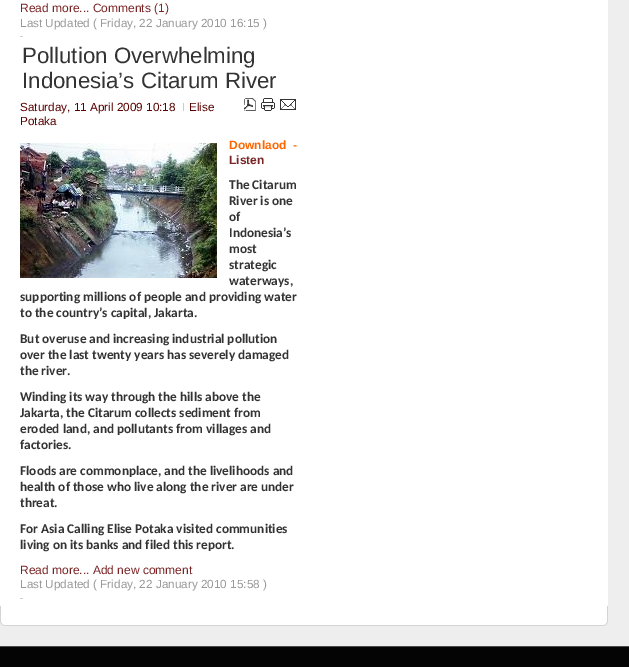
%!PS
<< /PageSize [629 667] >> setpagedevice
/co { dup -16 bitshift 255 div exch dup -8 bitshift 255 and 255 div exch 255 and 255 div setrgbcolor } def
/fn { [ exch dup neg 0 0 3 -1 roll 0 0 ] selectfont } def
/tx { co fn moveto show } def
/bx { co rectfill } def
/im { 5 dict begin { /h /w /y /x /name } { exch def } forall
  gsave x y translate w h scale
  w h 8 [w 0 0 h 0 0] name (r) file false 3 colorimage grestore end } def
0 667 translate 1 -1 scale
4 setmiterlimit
0 0 629 667 16#EEEEEE bx
0 0 608 606 16#FFFFFF bx
(media/1.raw) 0 606 608 20 im
20 36 3 1 16#D0D0D0 bx
183 103 1 8 16#CCCCCC bx
(media/2.raw) 244 98 12 13 im
(media/3.raw) 261 98 14 13 im
(media/4.raw) 280 99 16 11 im
(media/5.raw) 20 143 197 135 im
20 598 3 1 16#D0D0D0 bx
0 647 629 20 16#040404 bx
0 646 629 1 16#4B4B48 bx
(Read more... Comments \(1\)) 20 12 /LiberationSans-Regular 12 16#7B2425 tx
(Last Updated \( Friday, 22 January 2010 16:15 \)) 20 27 /LiberationSans-Regular 11.75 16#999999 tx
(Pollution Overwhelming) 22 63 /LiberationSans-Regular 22.25 16#333333 tx
(Indonesia’s Citarum River) 22 88 /LiberationSans-Regular 22.25 16#333333 tx
(Saturday, 11 April 2009 10:18) 20 111 /LiberationSans-Regular 11.75 16#580000 tx
(Elise) 189 111 /LiberationSans-Regular 11.75 16#580000 tx
(Potaka) 20 125 /LiberationSans-Regular 11.75 16#580000 tx
(Downlaod  -) 229 149 /LiberationSans-Bold 12 16#FF6600 tx
(Listen) 229 164 /LiberationSans-Bold 12 16#7B2425 tx
(The Citarum) 229 189 /Carlito-Bold 13.3 16#333333 tx
(River is one) 229 205 /Carlito-Bold 13.3 16#333333 tx
(of) 229 221 /Carlito-Bold 13.3 16#333333 tx
(Indonesia’s) 229 237 /Carlito-Bold 13.3 16#333333 tx
(most) 229 253 /Carlito-Bold 13.3 16#333333 tx
(strategic) 229 269 /Carlito-Bold 13.3 16#333333 tx
(waterways,) 229 285 /Carlito-Bold 13.3 16#333333 tx
(supporting millions of people and providing water) 20 301 /Carlito-Bold 13.3 16#333333 tx
(to the country’s capital, Jakarta.) 20 317 /Carlito-Bold 13.3 16#333333 tx
(But overuse and increasing industrial pollution) 20 343 /Carlito-Bold 13.3 16#333333 tx
(over the last twenty years has severely damaged) 20 359 /Carlito-Bold 13.3 16#333333 tx
(the river.) 20 375 /Carlito-Bold 13.3 16#333333 tx
(Winding its way through the hills above the) 20 401 /Carlito-Bold 13.3 16#333333 tx
(Jakarta, the Citarum collects sediment from) 20 417 /Carlito-Bold 13.3 16#333333 tx
(eroded land, and pollutants from villages and) 20 433 /Carlito-Bold 13.3 16#333333 tx
(factories.) 20 449 /Carlito-Bold 13.3 16#333333 tx
(Floods are commonplace, and the livelihoods and) 20 475 /Carlito-Bold 13.3 16#333333 tx
(health of those who live along the river are under) 20 491 /Carlito-Bold 13.3 16#333333 tx
(threat.) 20 507 /Carlito-Bold 13.3 16#333333 tx
(For Asia Calling Elise Potaka visited communities) 20 533 /Carlito-Bold 13.3 16#333333 tx
(living on its banks and filed this report.) 20 549 /Carlito-Bold 13.3 16#333333 tx
(Read more... Add new comment) 20 574 /LiberationSans-Regular 12 16#7B2425 tx
(Last Updated \( Friday, 22 January 2010 15:58 \)) 20 588 /LiberationSans-Regular 11.75 16#999999 tx
showpage
